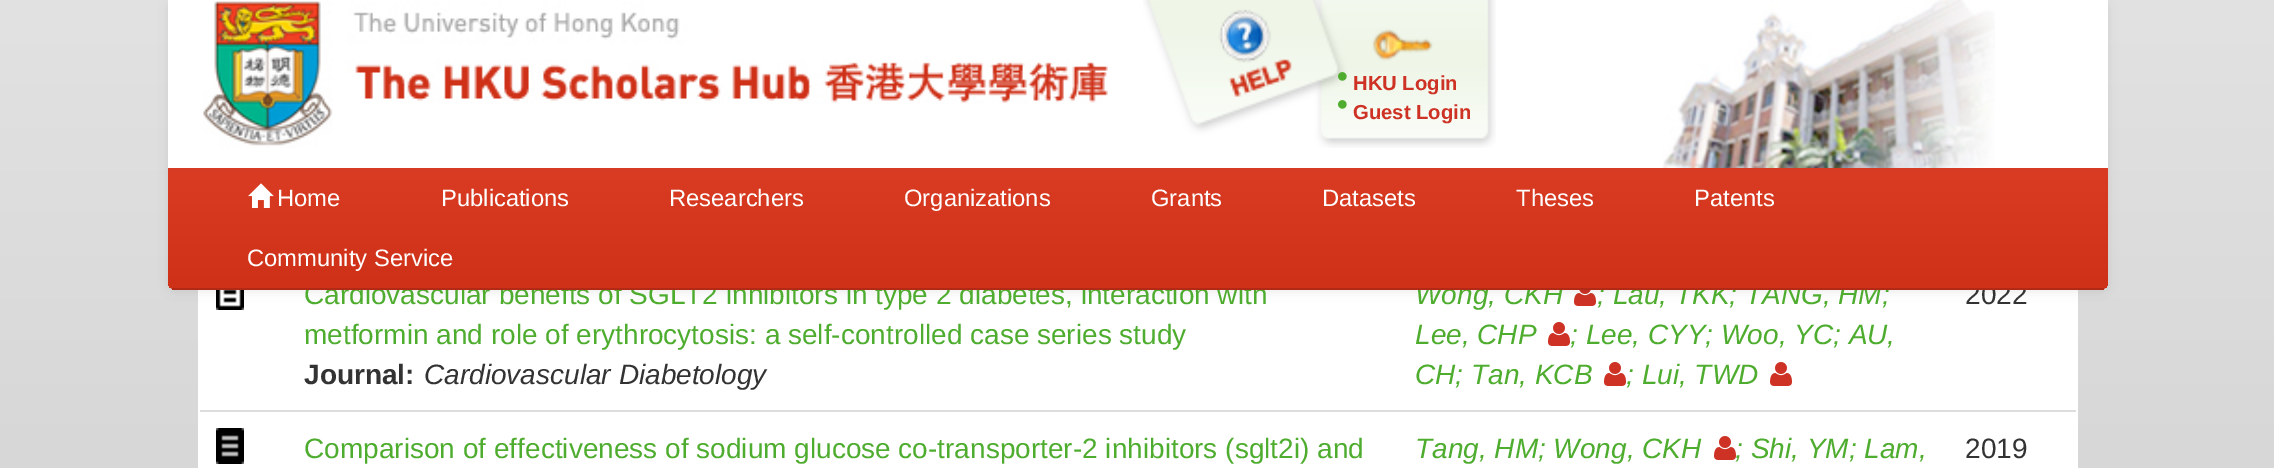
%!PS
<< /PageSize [2274 468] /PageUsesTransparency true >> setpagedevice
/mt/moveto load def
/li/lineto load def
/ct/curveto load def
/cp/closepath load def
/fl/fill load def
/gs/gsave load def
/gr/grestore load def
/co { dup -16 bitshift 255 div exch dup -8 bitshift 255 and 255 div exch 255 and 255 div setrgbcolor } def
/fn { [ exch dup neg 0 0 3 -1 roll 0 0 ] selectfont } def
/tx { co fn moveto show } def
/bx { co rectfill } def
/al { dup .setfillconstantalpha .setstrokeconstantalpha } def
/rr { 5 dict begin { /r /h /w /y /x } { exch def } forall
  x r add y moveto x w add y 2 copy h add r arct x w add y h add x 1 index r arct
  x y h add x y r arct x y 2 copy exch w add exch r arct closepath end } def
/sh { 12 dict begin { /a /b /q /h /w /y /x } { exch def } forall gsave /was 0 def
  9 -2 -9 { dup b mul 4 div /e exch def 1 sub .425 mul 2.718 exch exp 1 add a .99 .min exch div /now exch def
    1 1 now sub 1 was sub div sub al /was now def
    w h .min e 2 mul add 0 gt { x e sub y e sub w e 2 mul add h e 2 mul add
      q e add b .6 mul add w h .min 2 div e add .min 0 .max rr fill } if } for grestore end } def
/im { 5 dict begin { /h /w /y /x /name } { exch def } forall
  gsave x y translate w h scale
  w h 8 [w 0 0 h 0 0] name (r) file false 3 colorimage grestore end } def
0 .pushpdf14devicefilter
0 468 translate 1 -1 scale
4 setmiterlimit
0 0 2274 468 16#FFFFFF bx
gs 0 0 mt 2274 0 li 2274 468 li 0 468 li cp clip newpath
<< /ShadingType 2 /ColorSpace /DeviceRGB /Coords [1137 -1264 1137 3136] /Extend [true true] /Function << /FunctionType 2 /Domain [0 1] /C0 [1 1 1] /C1 [.6 .6 .6] /N 1 >> >> shfill gr
198 290 1880 178 16#FFFFFF bx
(media/7.raw) 216 290 28 20 im
(media/8.raw) 1574 290 22 16 im
16#000000 co
168 2 1940 290 8 5 .07 sh
(media/9.raw) 1548 322 22 24 im
(media/9.raw) 1604 362 22 24 im
(media/9.raw) 1770 362 22 24 im
(media/10.raw) 216 428 28 36 im
(media/9.raw) 1714 436 22 24 im
200 410 1876 2 16#DDDDDD bx
(Cardiovascular benefts of SGLT2 inhibitors in type 2 diabetes, interaction with) 304 304 /LiberationSans-Regular 28 16#4EAC2E tx
(metformin and role of erythrocytosis: a self-controlled case series study) 304 344 /LiberationSans-Regular 28 16#4EAC2E tx
(Journal:) 304 384 /LiberationSans-Bold 28 16#333333 tx
(Cardiovascular Diabetology) 424 384 /LiberationSans-Italic 28 16#333333 tx
(Wong, CKH) 1415 304 /LiberationSans-Italic 28 16#4EAC2E tx
(; Lau, TKK; TANG, HM;) 1597 304 /LiberationSans-Italic 28 16#4EAC2E tx
(Lee, CHP) 1415 344 /LiberationSans-Italic 28 16#4EAC2E tx
(; Lee, CYY; Woo, YC; AU,) 1570 344 /LiberationSans-Italic 28 16#4EAC2E tx
(CH; Tan, KCB) 1415 384 /LiberationSans-Italic 28 16#4EAC2E tx
(; Lui, TWD) 1626 384 /LiberationSans-Italic 28 16#4EAC2E tx
(2022) 1965 304 /LiberationSans-Regular 28 16#333333 tx
16#CF3118 co
168 0 1940 290 8 rr fl
gs
168 0 1940 290 8 rr clip newpath
gs 176 0 mt 2100 0 li 2104.5 0 2108 3.5 2108 8 ct 2108 288 li 168 288 li 168 8 li 168 3.5 171.5 0 176 0 ct cp clip newpath
<< /ShadingType 2 /ColorSpace /DeviceRGB /Coords [1138 0 1138 288] /Extend [true true] /Function << /FunctionType 2 /Domain [0 1] /C0 [.906 .294 .2] /C1 [.812 .192 .094] /N 1 >> >> shfill gr
gr
(Community Service) 247 266 /LiberationSans-Regular 23.75 16#FFFFFF tx
(Patents) 1694 206 /LiberationSans-Regular 23.75 16#FFFFFF tx
(Theses) 1516 206 /LiberationSans-Regular 23.75 16#FFFFFF tx
(Datasets) 1322 206 /LiberationSans-Regular 23.75 16#FFFFFF tx
(Grants) 1151 206 /LiberationSans-Regular 23.75 16#FFFFFF tx
(Organizations) 904 206 /LiberationSans-Regular 23.75 16#FFFFFF tx
(Researchers) 669 206 /LiberationSans-Regular 23.75 16#FFFFFF tx
(Publications) 441 206 /LiberationSans-Regular 23.75 16#FFFFFF tx
(media/6.raw) 248 183 26 25 im
(Home) 277 206 /LiberationSans-Regular 23.75 16#FFFFFF tx
168 0 1940 168 16#FFFFFF bx
(media/5.raw) 1662 0 333 168 im
(media/2.raw) 1143 0 353 148 im
(media/4.raw) 1338 100 9 9 im
(Guest Login) 1353 119 /LiberationSans-Bold 20.25 16#CD3225 tx
(media/3.raw) 1338 72 9 9 im
(HKU Login) 1353 90 /LiberationSans-Bold 20.25 16#CD3225 tx
(media/1.raw) 203 1 905 147 im
172 288 1932 2 16#B12A15 bx
(Comparison of effectiveness of sodium glucose co-transporter-2 inhibitors \(sglt2i\) and) 304 458 /LiberationSans-Regular 28 16#4EAC2E tx
(Tang, HM; Wong, CKH) 1415 458 /LiberationSans-Italic 28 16#4EAC2E tx
(; Shi, YM; Lam,) 1735 458 /LiberationSans-Italic 28 16#4EAC2E tx
(2019) 1965 458 /LiberationSans-Regular 28 16#333333 tx
.poppdf14devicefilter showpage
